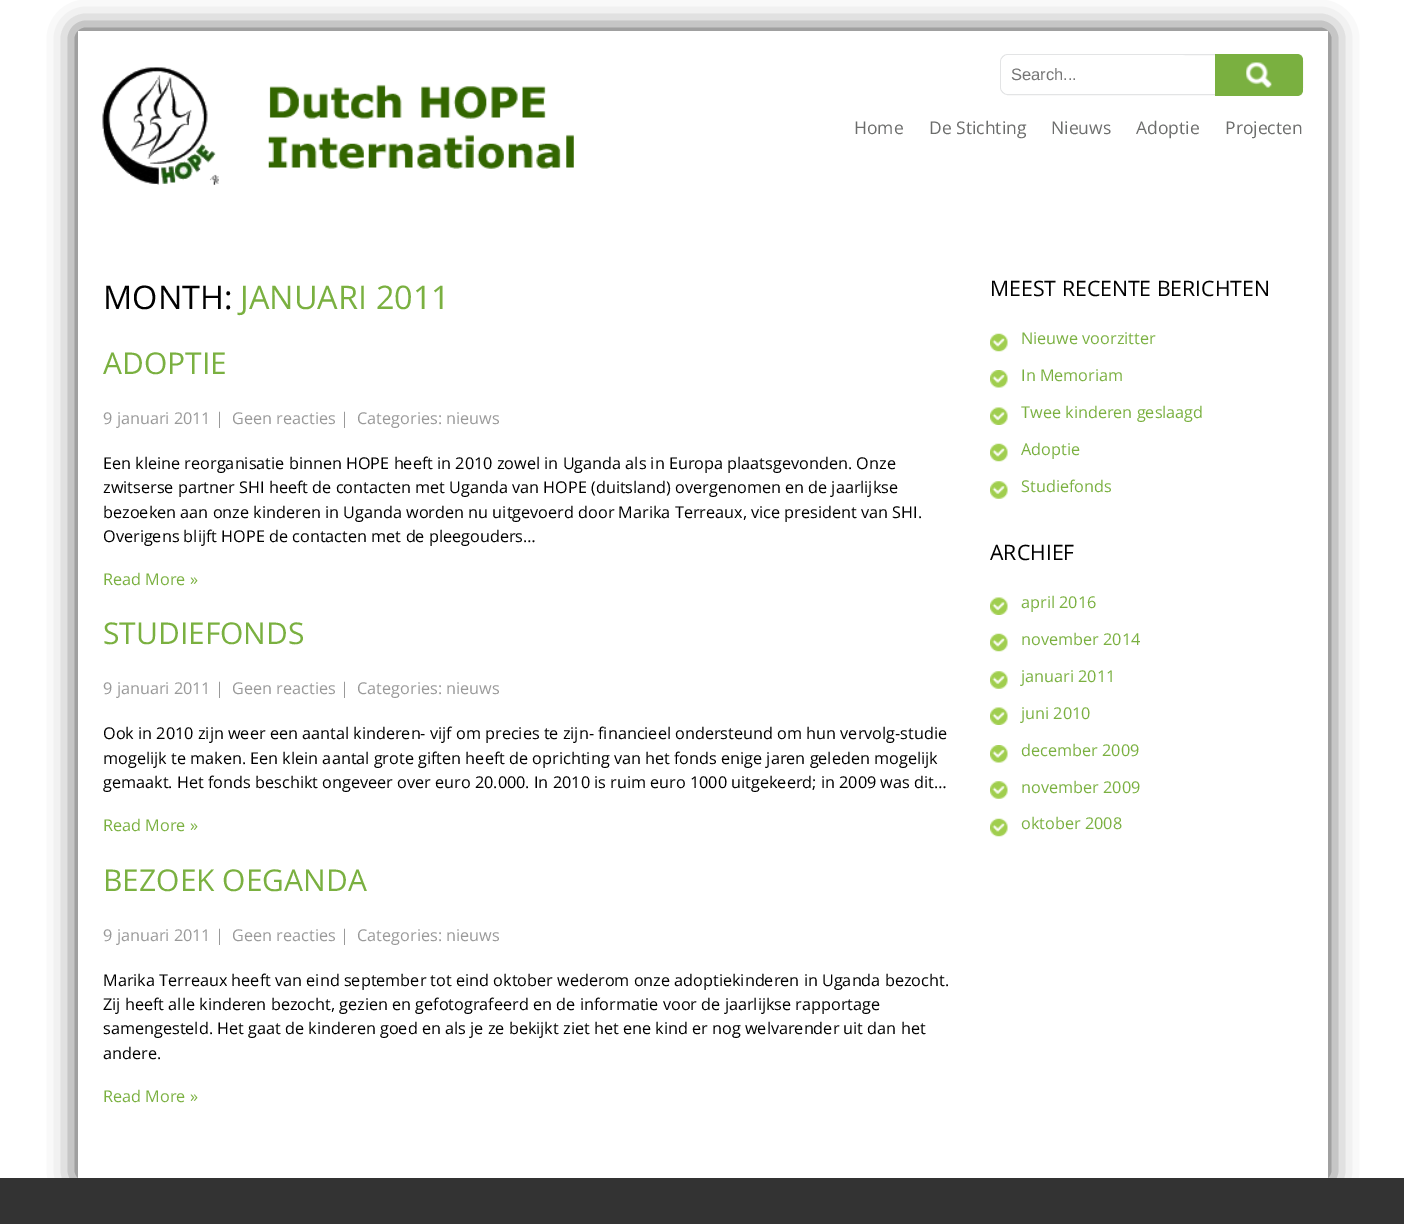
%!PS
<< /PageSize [1404 1224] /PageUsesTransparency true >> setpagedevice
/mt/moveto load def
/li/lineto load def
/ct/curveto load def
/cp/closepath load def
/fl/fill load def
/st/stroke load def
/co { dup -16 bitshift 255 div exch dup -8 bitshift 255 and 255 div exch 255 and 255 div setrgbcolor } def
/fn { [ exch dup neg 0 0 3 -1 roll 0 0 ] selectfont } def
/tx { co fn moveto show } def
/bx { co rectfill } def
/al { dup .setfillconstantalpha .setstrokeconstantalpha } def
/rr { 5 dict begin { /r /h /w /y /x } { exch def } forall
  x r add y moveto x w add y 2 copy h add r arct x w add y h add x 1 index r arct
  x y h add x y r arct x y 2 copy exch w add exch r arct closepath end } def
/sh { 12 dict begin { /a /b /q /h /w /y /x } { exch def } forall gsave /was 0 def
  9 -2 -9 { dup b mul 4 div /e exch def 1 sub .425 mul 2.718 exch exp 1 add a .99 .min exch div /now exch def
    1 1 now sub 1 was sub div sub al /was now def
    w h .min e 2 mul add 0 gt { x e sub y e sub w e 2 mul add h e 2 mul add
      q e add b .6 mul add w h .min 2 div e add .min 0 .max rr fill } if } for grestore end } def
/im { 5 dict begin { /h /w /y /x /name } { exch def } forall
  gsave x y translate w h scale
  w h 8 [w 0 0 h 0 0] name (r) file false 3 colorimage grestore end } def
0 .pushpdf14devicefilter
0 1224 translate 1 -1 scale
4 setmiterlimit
0 0 1404 1224 16#FFFFFF bx
16#000000 co
78 31 1250 1147 0 14 .75 sh
78 31 1250 1147 16#FFFFFF bx
(media/1.raw) 102 67 472 118 im
16#E3E4E5 co
1000.5 54.5 302 40 7.5 rr st
16#FFFFFF co
1001 55 188 39 8 rr fl
16#7AB040 co
1215 54 mt 1297 54 li 1300.5 54 1303 56.5 1303 60 ct 1303 90 li 1303 93.5 1300.5 96 1297 96 ct 1215 96 li cp fl
(media/2.raw) 1246 62 26 26 im
(media/3.raw) 990 333 18 19 im
(media/4.raw) 990 370 18 18 im
(media/5.raw) 990 407 18 18 im
(media/3.raw) 990 443 18 19 im
(media/6.raw) 990 481 18 18 im
(media/5.raw) 990 597 18 18 im
(media/3.raw) 990 633 18 19 im
(media/6.raw) 990 671 18 18 im
(media/5.raw) 990 707 18 18 im
(media/4.raw) 990 745 18 18 im
(media/7.raw) 990 781 18 18 im
(media/3.raw) 990 818 18 19 im
0 1178 1404 46 16#333333 bx
(Search...) 1011 80 /LiberationSans-Regular 16.5 16#757575 tx
(Home) 854 134 /OpenSans-Regular 17.5 16#6C6D6C tx
(De Stichting) 929 134 /OpenSans-Regular 17.5 16#6C6D6C tx
(Nieuws) 1051 134 /OpenSans-Regular 17.5 16#6C6D6C tx
(Adoptie) 1136 134 /OpenSans-Regular 17.5 16#6C6D6C tx
(Projecten) 1225 134 /OpenSans-Regular 17.5 16#6C6D6C tx
(MONTH:) 103 309 /OpenSans-Regular 32.5 16#000000 tx
(JANUARI 2011) 240 309 /OpenSans-Regular 32.5 16#7AB040 tx
(ADOPTIE) 103 374 /OpenSans-Regular 30 16#7AB040 tx
(9 januari 2011 |) 103 424 /OpenSans-Regular 16.25 16#999999 tx
(Geen reacties |  Categories: nieuws) 232 424 /OpenSans-Regular 16.25 16#999999 tx
(Een kleine reorganisatie binnen HOPE heeft in 2010 zowel in Uganda als in Europa plaatsgevonden. Onze) 103 469 /OpenSans-Regular 16.25 16#000000 tx
(zwitserse partner SHI heeft de contacten met Uganda van HOPE \(duitsland\) overgenomen en de jaarlijkse) 103 493 /OpenSans-Regular 16.25 16#000000 tx
(bezoeken aan onze kinderen in Uganda worden nu uitgevoerd door Marika Terreaux, vice president van SHI.) 103 518 /OpenSans-Regular 16.25 16#000000 tx
(Overigens blijft HOPE de contacten met de pleegouders…) 103 542 /OpenSans-Regular 16.25 16#000000 tx
(Read More ») 103 585 /OpenSans-Regular 16.25 16#7AB040 tx
(STUDIEFONDS) 103 644 /OpenSans-Regular 30 16#7AB040 tx
(9 januari 2011 |) 103 694 /OpenSans-Regular 16.25 16#999999 tx
(Geen reacties |  Categories: nieuws) 232 694 /OpenSans-Regular 16.25 16#999999 tx
(Ook in 2010 zijn weer een aantal kinderen- vijf om precies te zijn- financieel ondersteund om hun vervolg-studie) 103 739 /OpenSans-Regular 16.25 16#000000 tx
(mogelijk te maken. Een klein aantal grote giften heeft de oprichting van het fonds enige jaren geleden mogelijk) 103 764 /OpenSans-Regular 16.25 16#000000 tx
(gemaakt. Het fonds beschikt ongeveer over euro 20.000. In 2010 is ruim euro 1000 uitgekeerd; in 2009 was dit…) 103 788 /OpenSans-Regular 16.25 16#000000 tx
(Read More ») 103 831 /OpenSans-Regular 16.25 16#7AB040 tx
(BEZOEK OEGANDA) 103 891 /OpenSans-Regular 30 16#7AB040 tx
(9 januari 2011 |) 103 941 /OpenSans-Regular 16.25 16#999999 tx
(Geen reacties |  Categories: nieuws) 232 941 /OpenSans-Regular 16.25 16#999999 tx
(Marika Terreaux heeft van eind september tot eind oktober wederom onze adoptiekinderen in Uganda bezocht.) 103 986 /OpenSans-Regular 16.25 16#000000 tx
(Zij heeft alle kinderen bezocht, gezien en gefotografeerd en de informatie voor de jaarlijkse rapportage) 103 1010 /OpenSans-Regular 16.25 16#000000 tx
(samengesteld. Het gaat de kinderen goed en als je ze bekijkt ziet het ene kind er nog welvarender uit dan het) 103 1034 /OpenSans-Regular 16.25 16#000000 tx
(andere.) 103 1059 /OpenSans-Regular 16.25 16#000000 tx
(Read More ») 103 1102 /OpenSans-Regular 16.25 16#7AB040 tx
(MEEST RECENTE BERICHTEN) 990 296 /OpenSans-Regular 21.25 16#000000 tx
(Nieuwe voorzitter) 1021 344 /OpenSans-Regular 16.25 16#7AB040 tx
(In Memoriam) 1021 381 /OpenSans-Regular 16.25 16#7AB040 tx
(Twee kinderen geslaagd) 1021 418 /OpenSans-Regular 16.25 16#7AB040 tx
(Adoptie) 1021 455 /OpenSans-Regular 16.25 16#7AB040 tx
(Studiefonds) 1021 492 /OpenSans-Regular 16.25 16#7AB040 tx
(ARCHIEF) 990 560 /OpenSans-Regular 21.25 16#000000 tx
(april 2016) 1021 608 /OpenSans-Regular 16.25 16#7AB040 tx
(november 2014) 1021 645 /OpenSans-Regular 16.25 16#7AB040 tx
(januari 2011) 1021 682 /OpenSans-Regular 16.25 16#7AB040 tx
(juni 2010) 1021 719 /OpenSans-Regular 16.25 16#7AB040 tx
(december 2009) 1021 756 /OpenSans-Regular 16.25 16#7AB040 tx
(november 2009) 1021 793 /OpenSans-Regular 16.25 16#7AB040 tx
(oktober 2008) 1021 829 /OpenSans-Regular 16.25 16#7AB040 tx
.poppdf14devicefilter showpage
